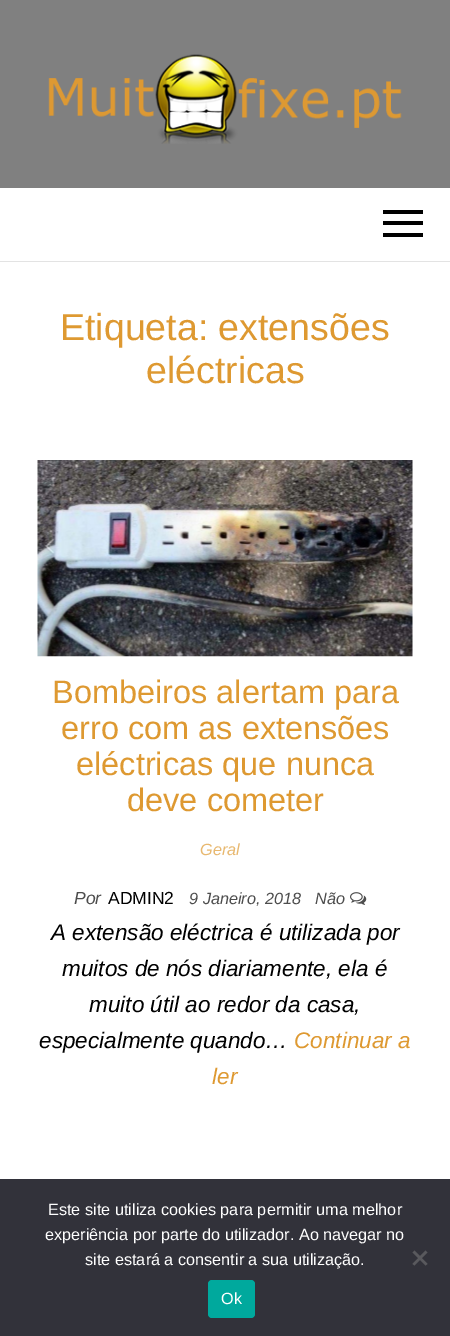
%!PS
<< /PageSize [450 1336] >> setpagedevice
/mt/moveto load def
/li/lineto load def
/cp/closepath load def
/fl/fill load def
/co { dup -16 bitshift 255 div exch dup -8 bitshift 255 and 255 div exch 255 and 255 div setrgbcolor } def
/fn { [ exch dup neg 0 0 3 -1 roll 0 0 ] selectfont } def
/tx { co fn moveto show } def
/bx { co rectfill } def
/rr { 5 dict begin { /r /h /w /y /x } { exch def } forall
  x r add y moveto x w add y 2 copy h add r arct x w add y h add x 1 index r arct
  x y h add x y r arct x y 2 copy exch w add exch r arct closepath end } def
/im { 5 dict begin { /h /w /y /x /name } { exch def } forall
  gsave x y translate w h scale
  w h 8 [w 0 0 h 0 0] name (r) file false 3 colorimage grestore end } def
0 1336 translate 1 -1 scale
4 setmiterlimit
0 0 450 1336 16#FFFFFF bx
0 0 450 188 16#808080 bx
(media/1.raw) 48 54 354 90 im
0 261 450 1 16#E3E3E3 bx
383 210 40 4 16#000000 bx
383 221 40 4 16#000000 bx
383 233 40 4 16#000000 bx
(media/2.raw) 37 460 376 197 im
(media/3.raw) 350 892 17 13 im
0 1179 450 157 16#32323A bx
16#59595D co
425.5 1250.5 mt 427.5 1252.5 li 414.5 1265.5 li 412.5 1264 li cp fl
412.5 1252.5 mt 414.5 1250.5 li 427.5 1264 li 425.5 1265.5 li cp fl
16#00A99D co
208 1280 47 38 4 rr fl
(Etiqueta: extensões) 60 340 /LiberationSans-Regular 37.5 16#DE9931 tx
(eléctricas) 146 383 /LiberationSans-Regular 37.5 16#DE9931 tx
(Bombeiros alertam para) 52 703 /LiberationSans-Regular 32.5 16#DE9931 tx
(erro com as extensões) 61 739 /LiberationSans-Regular 32.5 16#DE9931 tx
(eléctricas que nunca) 76 775 /LiberationSans-Regular 32.5 16#DE9931 tx
(deve cometer) 127 811 /LiberationSans-Regular 32.5 16#DE9931 tx
(Geral) 200 855 /LiberationSans-Italic 16.25 16#E8B86F tx
(Por) 74 904 /LiberationSans-Italic 17.5 16#4D4D4D tx
(ADMIN2) 108 904 /LiberationSans-Regular 17.5 16#000000 tx
(9 Janeiro, 2018) 189 904 /LiberationSans-Italic 16.25 16#4D4D4D tx
(Não) 315 904 /LiberationSans-Italic 16.25 16#4D4D4D tx
(A extensão eléctrica é utilizada por) 51 940 /LiberationSans-Italic 22.5 16#000000 tx
(muitos de nós diariamente, ela é) 62 976 /LiberationSans-Italic 22.5 16#000000 tx
(muito útil ao redor da casa,) 89 1012 /LiberationSans-Italic 22.5 16#000000 tx
(especialmente quando…) 39 1048 /LiberationSans-Italic 22.5 16#000000 tx
(Continuar a) 294 1048 /LiberationSans-Italic 22.5 16#DE9931 tx
(ler) 212 1084 /LiberationSans-Italic 22.5 16#DE9931 tx
(Este site utiliza cookies para permitir uma melhor) 48 1215 /LiberationSans-Regular 16.25 16#FFFFFF tx
(experiência por parte do utilizador. Ao navegar no) 45 1240 /LiberationSans-Regular 16.25 16#FFFFFF tx
(site estará a consentir a sua utilização.) 85 1265 /LiberationSans-Regular 16.25 16#FFFFFF tx
(Ok) 221 1304 /LiberationSans-Regular 16.25 16#FFFFFF tx
showpage
